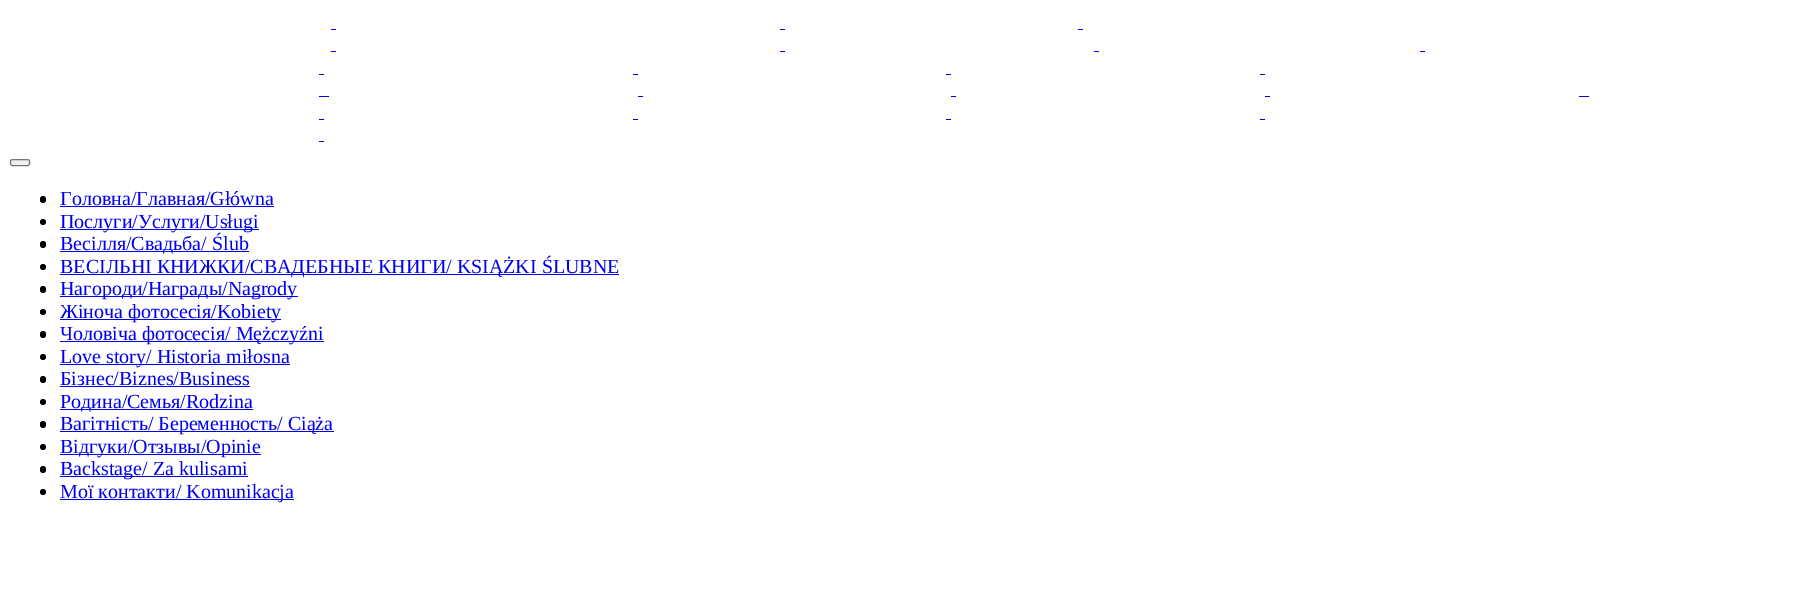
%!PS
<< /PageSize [1819 611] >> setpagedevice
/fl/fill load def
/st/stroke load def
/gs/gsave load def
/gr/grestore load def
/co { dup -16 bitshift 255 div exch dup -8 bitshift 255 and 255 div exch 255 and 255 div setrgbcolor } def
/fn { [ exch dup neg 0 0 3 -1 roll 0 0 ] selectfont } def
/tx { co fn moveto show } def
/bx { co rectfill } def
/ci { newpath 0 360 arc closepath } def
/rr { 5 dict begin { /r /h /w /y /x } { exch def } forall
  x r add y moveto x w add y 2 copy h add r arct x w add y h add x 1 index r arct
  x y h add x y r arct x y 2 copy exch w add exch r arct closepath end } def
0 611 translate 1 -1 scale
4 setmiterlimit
0 0 1819 611 16#FFFFFF bx
331 29 5 1 16#0000EE bx
780 29 5 1 16#0000EE bx
1078 29 5 1 16#0000EE bx
331 51 5 1 16#0000EE bx
780 51 5 1 16#0000EE bx
1094 51 5 1 16#0000EE bx
1420 51 5 1 16#0000EE bx
319 74 5 1 16#0000EE bx
633 74 5 1 16#0000EE bx
946 74 5 1 16#0000EE bx
1260 74 5 1 16#0000EE bx
319 96 10 1 16#0000EE bx
638 96 5 1 16#0000EE bx
951 96 5 1 16#0000EE bx
1265 96 5 1 16#0000EE bx
1579 96 10 1 16#0000EE bx
319 119 5 1 16#0000EE bx
633 119 5 1 16#0000EE bx
946 119 5 1 16#0000EE bx
1260 119 5 1 16#0000EE bx
319 141 5 1 16#0000EE bx
16#EFEFEF co
10.5 159.5 19 6 2 rr gs fl gr
16#767676 co
st
16#000000 co
40 196 6 7 3 rr fl
60 206 214 1 16#0000EE bx
16#000000 co
43 222 3 ci fl
60 229 199 1 16#0000EE bx
16#000000 co
40 241 6 7 3 rr fl
60 251 189 1 16#0000EE bx
16#000000 co
43 267 3 ci fl
60 274 559 1 16#0000EE bx
16#000000 co
40 286 6 7 3 rr fl
60 296 238 1 16#0000EE bx
16#000000 co
43 312 3 ci fl
60 319 221 1 16#0000EE bx
16#000000 co
40 331 6 7 3 rr fl
60 341 264 1 16#0000EE bx
16#000000 co
43 357 3 ci fl
60 364 230 1 16#0000EE bx
16#000000 co
40 376 6 7 3 rr fl
60 386 190 1 16#0000EE bx
16#000000 co
43 402 3 ci fl
60 409 193 1 16#0000EE bx
16#000000 co
40 421 6 7 3 rr fl
60 431 274 1 16#0000EE bx
16#000000 co
43 447 3 ci fl
60 454 201 1 16#0000EE bx
16#000000 co
40 466 6 7 3 rr fl
60 476 188 1 16#0000EE bx
16#000000 co
43 492 3 ci fl
60 499 234 1 16#0000EE bx
(Головна/Главная/Główna) 60 205 /LiberationSerif-Regular 20 16#0000EE tx
(Послуги/Услуги/Usługi) 60 228 /LiberationSerif-Regular 20 16#0000EE tx
(Весілля/Свадьба/ Ślub) 60 250 /LiberationSerif-Regular 20 16#0000EE tx
(ВЕСІЛЬНІ КНИЖКИ/СВАДЕБНЫЕ КНИГИ/ KSIĄŻKI ŚLUBNE) 60 273 /LiberationSerif-Regular 20 16#0000EE tx
(Нагороди/Награды/Nagrody) 60 295 /LiberationSerif-Regular 20 16#0000EE tx
(Жіноча фотосесія/Kobiety) 60 318 /LiberationSerif-Regular 20 16#0000EE tx
(Чоловіча фотосесія/ Mężczyźni) 60 340 /LiberationSerif-Regular 20 16#0000EE tx
(Love story/ Historia miłosna) 60 363 /LiberationSerif-Regular 20 16#0000EE tx
(Бізнес/Biznes/Business) 60 385 /LiberationSerif-Regular 20 16#0000EE tx
(Родина/Семья/Rodzina) 60 408 /LiberationSerif-Regular 20 16#0000EE tx
(Вагітність/ Беременность/ Ciąża) 60 430 /LiberationSerif-Regular 20 16#0000EE tx
(Відгуки/Отзывы/Opinie) 60 453 /LiberationSerif-Regular 20 16#0000EE tx
(Backstage/ Za kulisami) 60 475 /LiberationSerif-Regular 20 16#0000EE tx
(Мої контакти/ Komunikacja) 60 498 /LiberationSerif-Regular 20 16#0000EE tx
showpage
